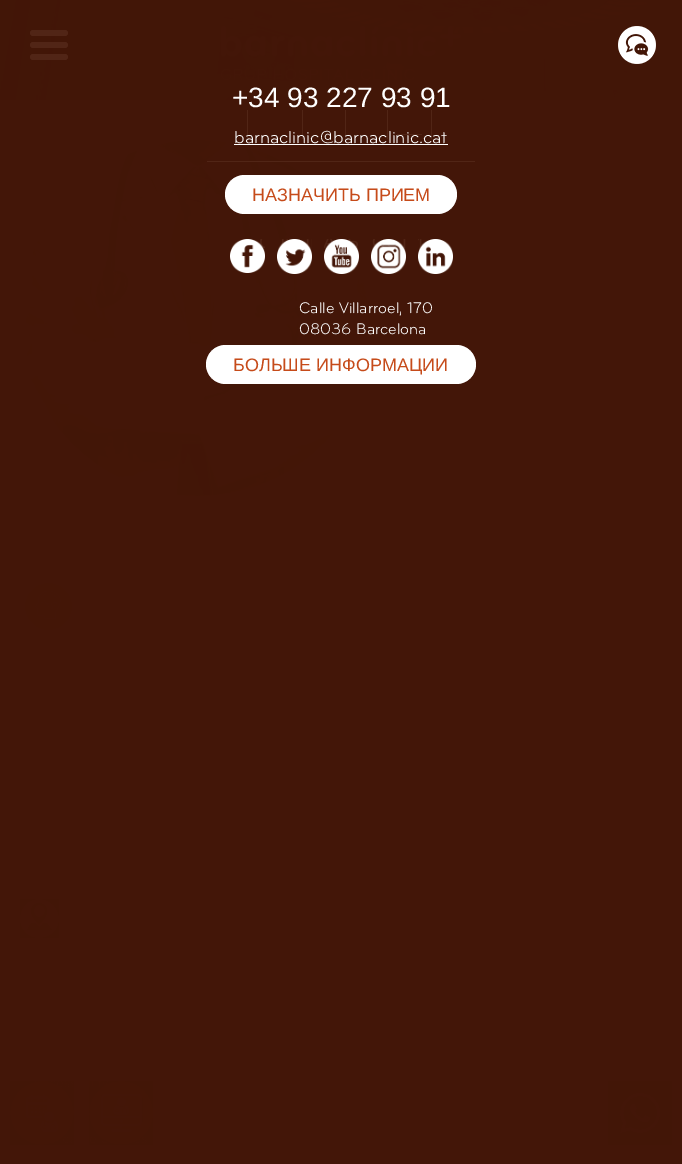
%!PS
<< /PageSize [682 1164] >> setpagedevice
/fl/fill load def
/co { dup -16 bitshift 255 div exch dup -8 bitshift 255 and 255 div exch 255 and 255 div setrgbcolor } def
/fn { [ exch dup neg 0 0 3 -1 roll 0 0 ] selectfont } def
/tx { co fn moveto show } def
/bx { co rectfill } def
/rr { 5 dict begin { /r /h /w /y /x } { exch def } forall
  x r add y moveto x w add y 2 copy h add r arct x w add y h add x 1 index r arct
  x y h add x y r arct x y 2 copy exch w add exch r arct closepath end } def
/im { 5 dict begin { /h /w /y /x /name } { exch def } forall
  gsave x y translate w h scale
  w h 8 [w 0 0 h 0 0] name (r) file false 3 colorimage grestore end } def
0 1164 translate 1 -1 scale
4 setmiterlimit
0 0 682 1164 16#431608 bx
(media/1.raw) 0 0 682 100 im
(media/2.raw) 221 26 240 54 im
16#512516 co
30 42 38 6 3 rr fl
30 30 38 6 3 rr fl
30 54 38 6 3 rr fl
(media/9.raw) 20 140 356 356 im
207 161 268 1 16#512516 bx
247 110 1 29 16#512516 bx
302 110 1 29 16#512516 bx
345 110 1 29 16#512516 bx
387 110 1 29 16#512516 bx
431 110 1 29 16#512516 bx
397 134 25 1 16#512516 bx
(media/3.raw) 618 26 38 38 im
234 144 214 1 16#FFFFFF bx
225 175 232 39 19.5 rr fl
(media/4.raw) 230 239 35 34 im
(media/5.raw) 277 239 35 35 im
(media/6.raw) 324 239 35 35 im
(media/7.raw) 371 239 35 35 im
(media/8.raw) 418 239 35 35 im
206 345 270 39 19.5 rr fl
(media/10.raw) 25 583 47 47 im
(media/11.raw) 20 899 39 39 im
(media/12.raw) 10 1081 64 64 im
(media/13.raw) 89 1081 64 64 im
(media/14.raw) 608 1081 64 64 im
(+34 93 227 93 91) 232 107 /LiberationSans-Regular 28 16#FFFFFF tx
(barnaclinic@barnaclinic.cat) 234 143 /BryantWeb-Regular 18 16#FFFFFF tx
(НАЗНАЧИТЬ ПРИЕМ) 252 201 /LiberationSans-Regular 18 16#C64B1A tx
(Calle Villarroel, 170) 299 313 /BryantWeb-Regular 16 16#FFFFFF tx
(08036 Barcelona) 299 334 /BryantWeb-Regular 16 16#FFFFFF tx
(БОЛЬШЕ ИНФОРМАЦИИ) 233 371 /LiberationSans-Regular 18 16#C64B1A tx
showpage
